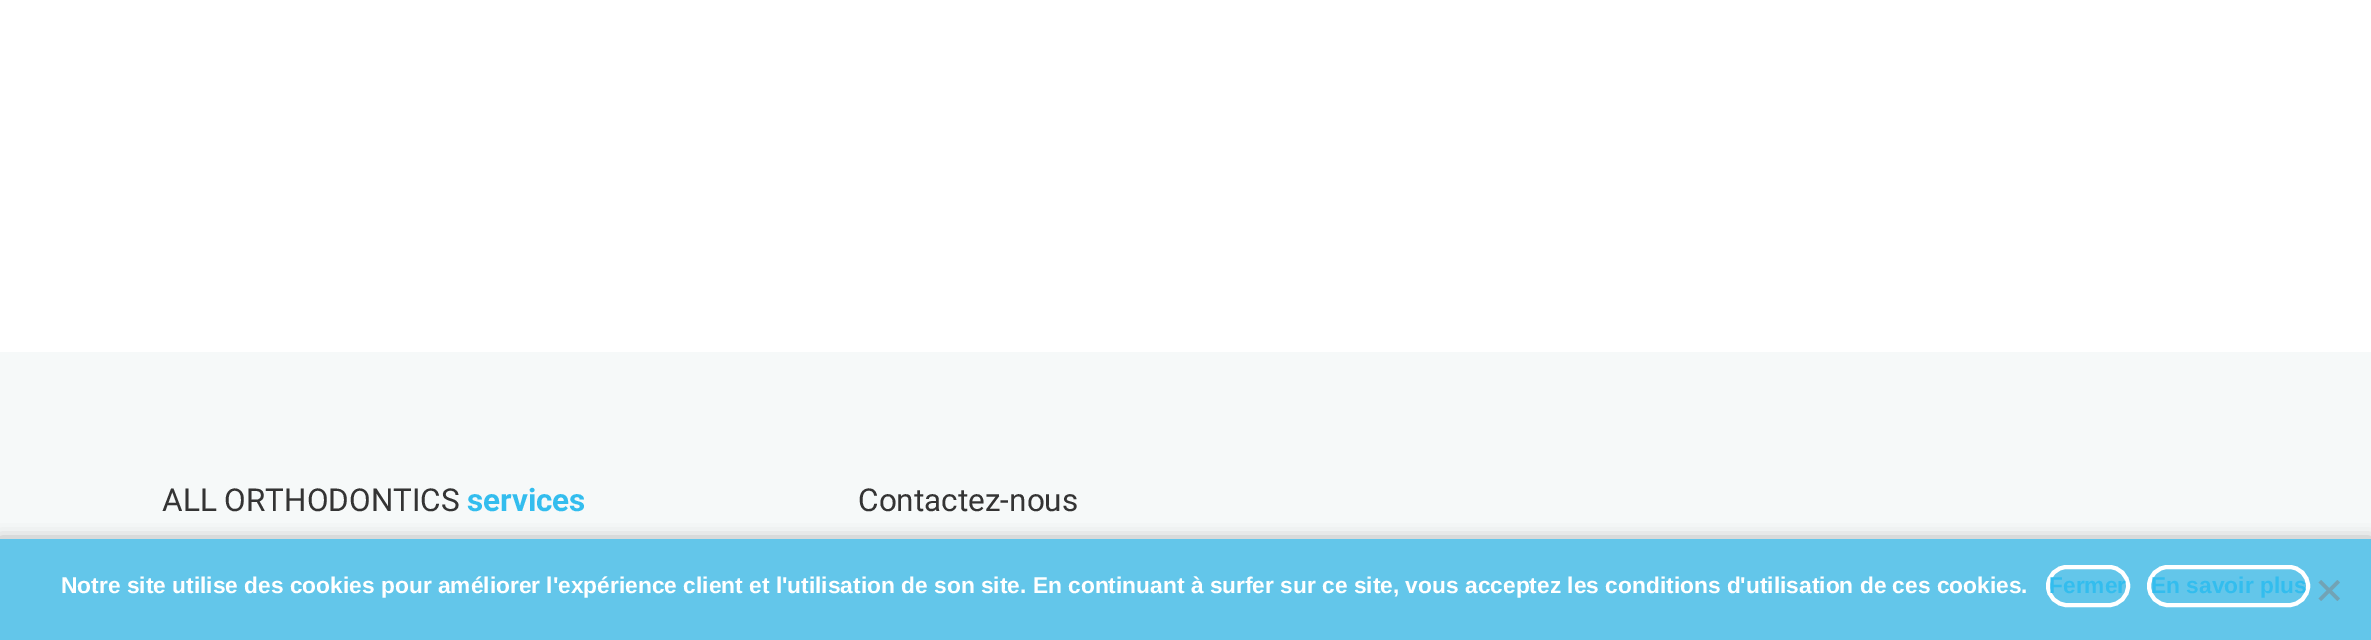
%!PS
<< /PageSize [2371 640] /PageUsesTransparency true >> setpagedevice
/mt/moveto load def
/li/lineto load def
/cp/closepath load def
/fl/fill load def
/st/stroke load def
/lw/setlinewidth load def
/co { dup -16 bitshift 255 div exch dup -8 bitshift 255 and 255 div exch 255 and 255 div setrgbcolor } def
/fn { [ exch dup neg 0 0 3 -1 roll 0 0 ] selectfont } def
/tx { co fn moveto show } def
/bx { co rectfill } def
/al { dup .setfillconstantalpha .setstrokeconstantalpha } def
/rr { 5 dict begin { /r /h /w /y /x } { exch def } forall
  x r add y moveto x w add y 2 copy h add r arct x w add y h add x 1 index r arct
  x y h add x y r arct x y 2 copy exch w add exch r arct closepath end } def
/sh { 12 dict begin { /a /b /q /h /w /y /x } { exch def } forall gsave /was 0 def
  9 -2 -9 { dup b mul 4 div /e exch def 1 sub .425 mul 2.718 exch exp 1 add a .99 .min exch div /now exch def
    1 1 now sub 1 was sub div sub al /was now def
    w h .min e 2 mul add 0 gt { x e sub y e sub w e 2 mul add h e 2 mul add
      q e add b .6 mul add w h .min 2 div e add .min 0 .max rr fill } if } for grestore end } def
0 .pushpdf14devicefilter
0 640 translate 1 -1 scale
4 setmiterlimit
0 0 2371 640 16#FFFFFF bx
0 352 2371 187 16#F6F9F9 bx
16#8E8E8E co
0 541 2371 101 0 8 1 sh
0 539 2371 101 16#63C6EA bx
16#FFFFFF co
4 lw
2048 567 80 38 19 rr st
2149 567 159 38 19 rr st
16#72A3B5 co
2337.5 580 mt 2340 582.5 li 2321 601 li 2318.5 598.5 li cp fl
2318.5 582.5 mt 2321 580 li 2340 598.5 li 2337.5 601 li cp fl
(ALL ORTHODONTICS) 162 511 /Roboto-Regular 31.5 16#343434 tx
(services) 467 511 /Roboto-Bold 31.5 16#33BDEE tx
(Contactez-nous) 858 511 /Roboto-Regular 31.5 16#343434 tx
(Notre site utilise des cookies pour améliorer l'expérience client et l'utilisation de son site. En continuant à surfer sur ce site, vous acceptez les conditions d'utilisation de ces cookies.) 61 593 /LiberationSans-Bold 22.75 16#FFFFFF tx
(Fermer) 2049 593 /LiberationSans-Bold 22.75 16#33BDEE tx
(En savoir plus) 2151 593 /LiberationSans-Bold 22.75 16#33BDEE tx
.poppdf14devicefilter showpage
